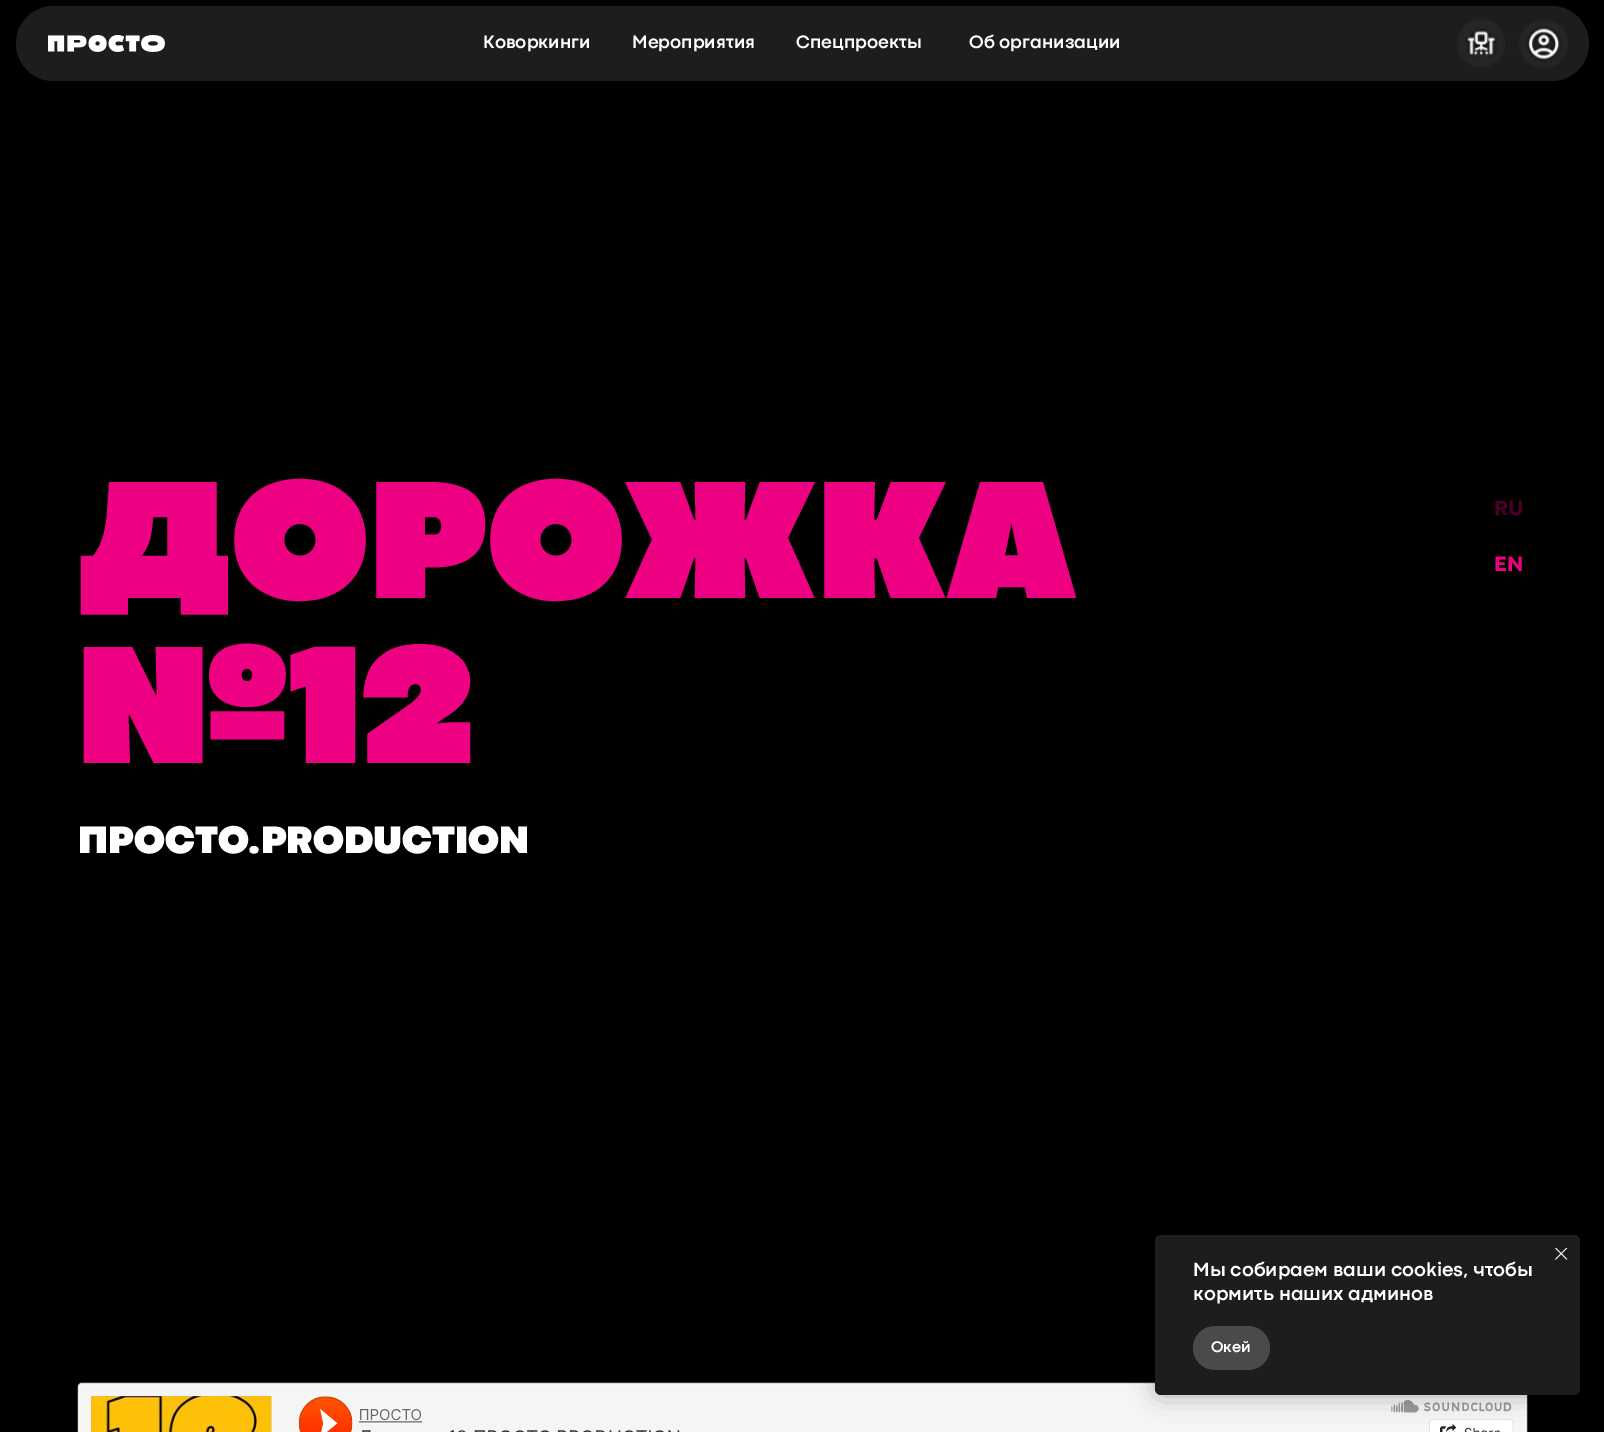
%!PS
<< /PageSize [1604 1432] /PageUsesTransparency true >> setpagedevice
/fl/fill load def
/co { dup -16 bitshift 255 div exch dup -8 bitshift 255 and 255 div exch 255 and 255 div setrgbcolor } def
/fn { [ exch dup neg 0 0 3 -1 roll 0 0 ] selectfont } def
/tx { co fn moveto show } def
/bx { co rectfill } def
/al { dup .setfillconstantalpha .setstrokeconstantalpha } def
/rr { 5 dict begin { /r /h /w /y /x } { exch def } forall
  x r add y moveto x w add y 2 copy h add r arct x w add y h add x 1 index r arct
  x y h add x y r arct x y 2 copy exch w add exch r arct closepath end } def
/sh { 12 dict begin { /a /b /q /h /w /y /x } { exch def } forall gsave /was 0 def
  9 -2 -9 { dup b mul 4 div /e exch def 1 sub .425 mul 2.718 exch exp 1 add a .99 .min exch div /now exch def
    1 1 now sub 1 was sub div sub al /was now def
    w h .min e 2 mul add 0 gt { x e sub y e sub w e 2 mul add h e 2 mul add
      q e add b .6 mul add w h .min 2 div e add .min 0 .max rr fill } if } for grestore end } def
/im { 5 dict begin { /h /w /y /x /name } { exch def } forall
  gsave x y translate w h scale
  w h 8 [w 0 0 h 0 0] name (r) file false 3 colorimage grestore end } def
0 .pushpdf14devicefilter
0 1432 translate 1 -1 scale
4 setmiterlimit
0 0 1604 1432 16#000000 bx
16#1D1D1D co
16 6 1573 75 37.5 rr fl
(media/1.raw) 48 35 117 17 im
(media/2.raw) 1457 19 49 49 im
(media/3.raw) 1519 19 49 50 im
(media/5.raw) 77 1382 1451 50 im
16#000000 co
1155 1235 425 160 6 12.5 .3 sh
16#1B1D1E co
1155 1235 425 160 6 rr fl
(media/4.raw) 1555 1248 13 12 im
16#484A4C co
1193 1326 77 44 22 rr fl
(Коворкинги) 483 48 /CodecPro-Bold 18.75 16#FFFFFF tx
(Мероприятия) 632 48 /CodecPro-Bold 18.75 16#FFFFFF tx
(Спецпроекты) 796 48 /CodecPro-Bold 18.75 16#FFFFFF tx
(Об организации) 969 48 /CodecPro-Bold 18.75 16#FFFFFF tx
(Мы собираем ваши cookies, чтобы) 1193 1276 /CodecPro-Bold 20 16#FFFFFF tx
(кормить наших админов) 1193 1300 /CodecPro-Bold 20 16#FFFFFF tx
(Окей) 1211 1352 /CodecPro-Bold 16 16#FFFFFF tx
(ДОРОЖКА) 78 598 /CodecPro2-ExtraBold 175 16#ED0082 tx
(RU) 1494 515 /CodecPro-ExtraBold 22 16#470027 tx
(EN) 1494 571 /CodecPro-ExtraBold 22 16#ED0082 tx
(№12) 78 763 /CodecPro2-ExtraBold 175 16#ED0082 tx
(ПРОСТО.PRODUCTION) 78 853 /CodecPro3-ExtraBold 40 16#FFFFFF tx
.poppdf14devicefilter showpage
